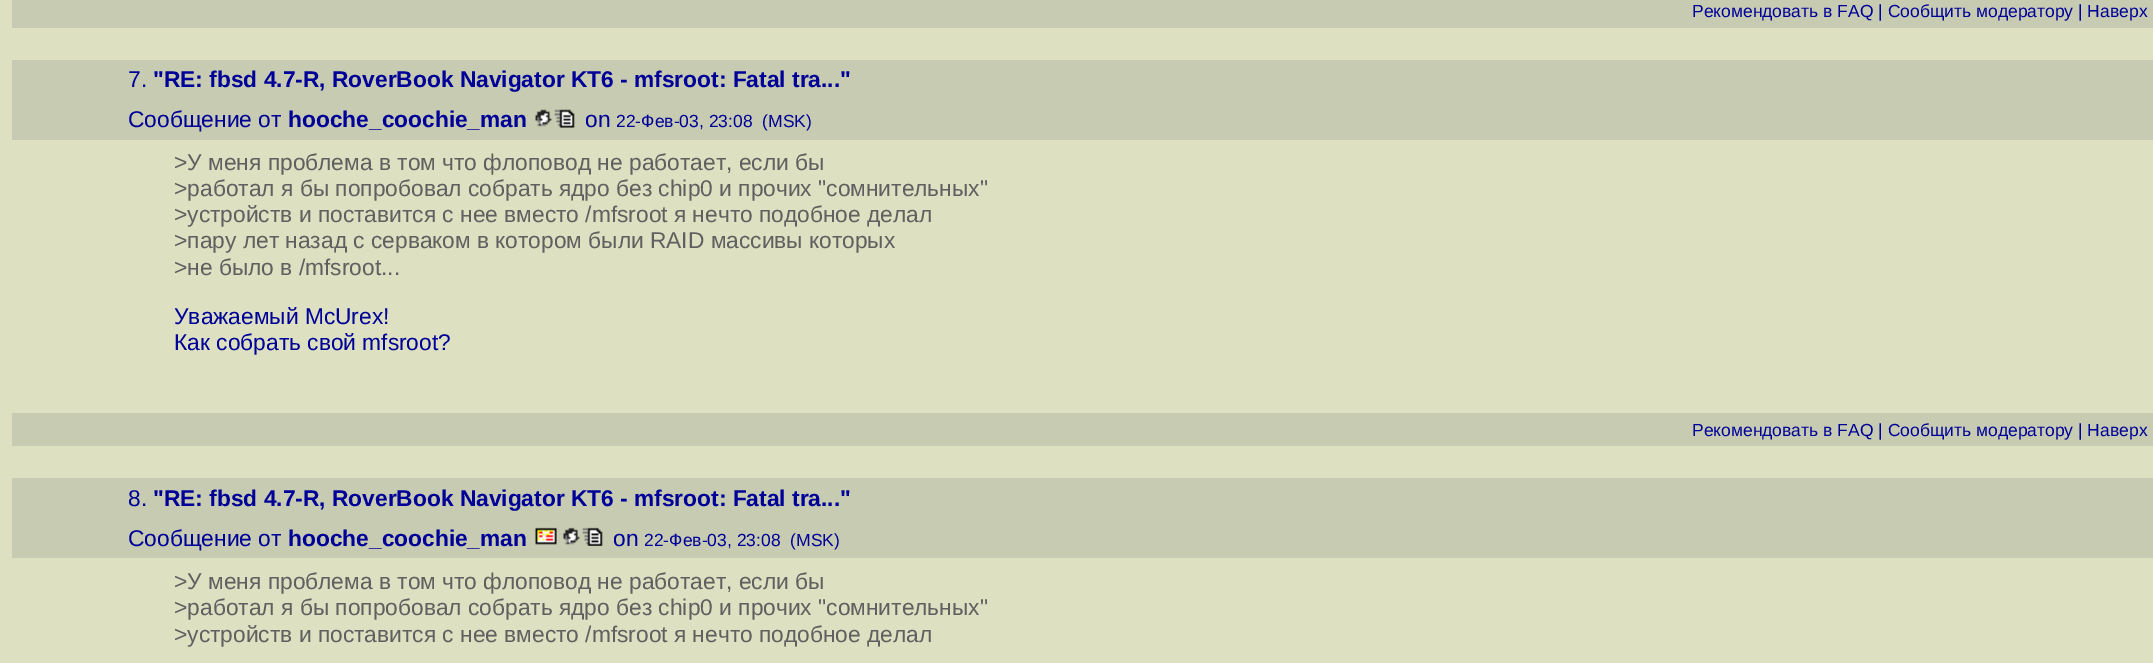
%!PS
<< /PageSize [2153 663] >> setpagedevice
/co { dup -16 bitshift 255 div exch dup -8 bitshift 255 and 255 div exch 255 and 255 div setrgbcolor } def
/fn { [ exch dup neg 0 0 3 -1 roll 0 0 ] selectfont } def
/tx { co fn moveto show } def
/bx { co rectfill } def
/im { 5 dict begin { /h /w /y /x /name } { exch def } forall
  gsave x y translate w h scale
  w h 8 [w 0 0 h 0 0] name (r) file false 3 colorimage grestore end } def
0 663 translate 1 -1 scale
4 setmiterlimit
0 0 2153 663 16#DDE1C2 bx
12 0 2141 28 16#C7CBB1 bx
12 60 2141 80 16#C7CBB1 bx
(media/1.raw) 535 109 17 18 im
(media/2.raw) 554 109 21 19 im
12 413 2141 33 16#C7CBB1 bx
12 478 2141 80 16#C7CBB1 bx
(media/3.raw) 535 527 22 18 im
(media/4.raw) 563 527 17 18 im
(media/5.raw) 582 527 21 19 im
(Рекомендовать в FAQ | Cообщить модератору | Наверх) 1692 17 /LiberationSans-Regular 17.5 16#000099 tx
(7.) 128 87 /LiberationSans-Regular 22.75 16#000099 tx
("RE: fbsd 4.7-R, RoverBook Navigator KT6 - mfsroot: Fatal tra...") 153 87 /LiberationSans-Bold 22.75 16#000099 tx
(Сообщение от) 128 127 /LiberationSans-Regular 22.75 16#000099 tx
(hooche_coochie_man) 288 127 /LiberationSans-Bold 22.75 16#000099 tx
(on) 585 127 /LiberationSans-Regular 22.75 16#000099 tx
(22-Фев-03, 23:08  \(MSK\)) 616 127 /LiberationSans-Regular 17.5 16#000099 tx
(>У меня проблема в том что флоповод не работает, если бы) 174 170 /LiberationSans-Regular 22.75 16#606060 tx
(>работал я бы попробовал собрать ядро без chip0 и прочих "сомнительных") 174 196 /LiberationSans-Regular 22.75 16#606060 tx
(>устройств и поставится с нее вместо /mfsroot я нечто подобное делал) 174 222 /LiberationSans-Regular 22.75 16#606060 tx
(>пару лет назад с серваком в котором были RAID массивы которых) 174 248 /LiberationSans-Regular 22.75 16#606060 tx
(>не было в /mfsroot...) 174 275 /LiberationSans-Regular 22.75 16#606060 tx
(Уважаемый McUrex!) 174 324 /LiberationSans-Regular 22.75 16#000099 tx
(Как собрать свой mfsroot?) 174 350 /LiberationSans-Regular 22.75 16#000099 tx
(Рекомендовать в FAQ | Cообщить модератору | Наверх) 1692 436 /LiberationSans-Regular 17.5 16#000099 tx
(8.) 128 506 /LiberationSans-Regular 22.75 16#000099 tx
("RE: fbsd 4.7-R, RoverBook Navigator KT6 - mfsroot: Fatal tra...") 153 506 /LiberationSans-Bold 22.75 16#000099 tx
(Сообщение от) 128 546 /LiberationSans-Regular 22.75 16#000099 tx
(hooche_coochie_man) 288 546 /LiberationSans-Bold 22.75 16#000099 tx
(on) 613 546 /LiberationSans-Regular 22.75 16#000099 tx
(22-Фев-03, 23:08  \(MSK\)) 644 546 /LiberationSans-Regular 17.5 16#000099 tx
(>У меня проблема в том что флоповод не работает, если бы) 174 589 /LiberationSans-Regular 22.75 16#606060 tx
(>работал я бы попробовал собрать ядро без chip0 и прочих "сомнительных") 174 615 /LiberationSans-Regular 22.75 16#606060 tx
(>устройств и поставится с нее вместо /mfsroot я нечто подобное делал) 174 642 /LiberationSans-Regular 22.75 16#606060 tx
showpage
